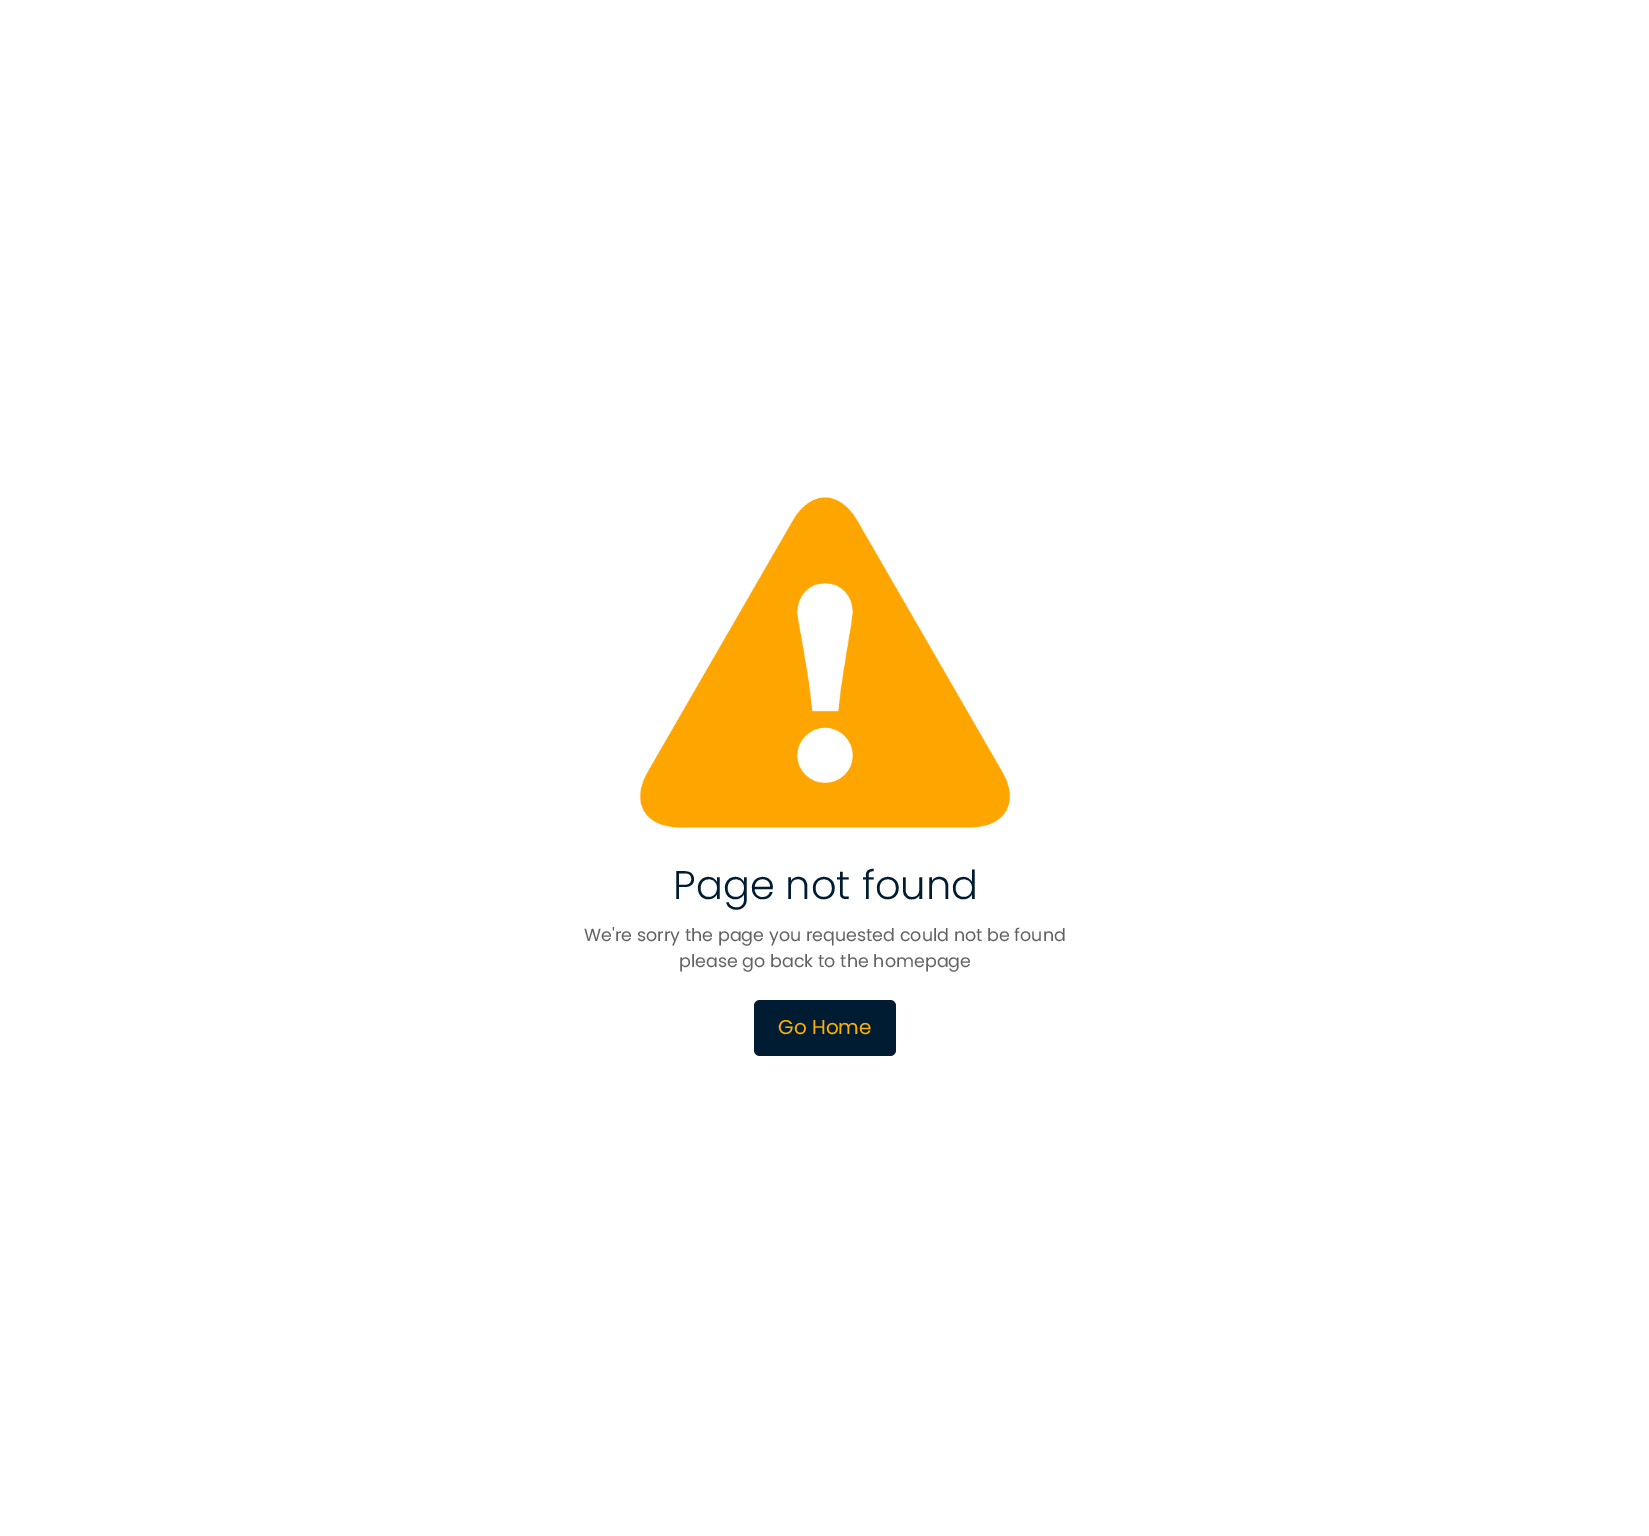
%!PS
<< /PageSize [1649 1536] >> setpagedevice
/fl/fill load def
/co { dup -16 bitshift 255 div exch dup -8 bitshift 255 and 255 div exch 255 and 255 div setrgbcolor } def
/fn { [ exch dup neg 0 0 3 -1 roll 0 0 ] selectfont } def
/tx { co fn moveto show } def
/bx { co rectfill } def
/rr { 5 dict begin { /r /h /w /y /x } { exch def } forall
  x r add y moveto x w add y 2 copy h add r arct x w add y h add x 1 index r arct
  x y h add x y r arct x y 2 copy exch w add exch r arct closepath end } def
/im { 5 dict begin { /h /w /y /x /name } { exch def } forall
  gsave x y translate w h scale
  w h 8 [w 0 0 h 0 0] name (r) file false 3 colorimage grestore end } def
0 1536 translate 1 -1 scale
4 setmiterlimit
0 0 1649 1536 16#FFFFFF bx
(media/1.raw) 639 497 372 331 im
16#001C32 co
754 1000 142 56 6 rr fl
(Page not found) 673 899 /Poppins-Light 40 16#001C32 tx
(We're sorry the page you requested could not be found) 584 941 /Poppins-Regular 17.5 16#626262 tx
(please go back to the homepage) 679 967 /Poppins-Regular 17.5 16#626262 tx
(Go Home) 778 1034 /Poppins-Regular 20 16#FFB000 tx
showpage
